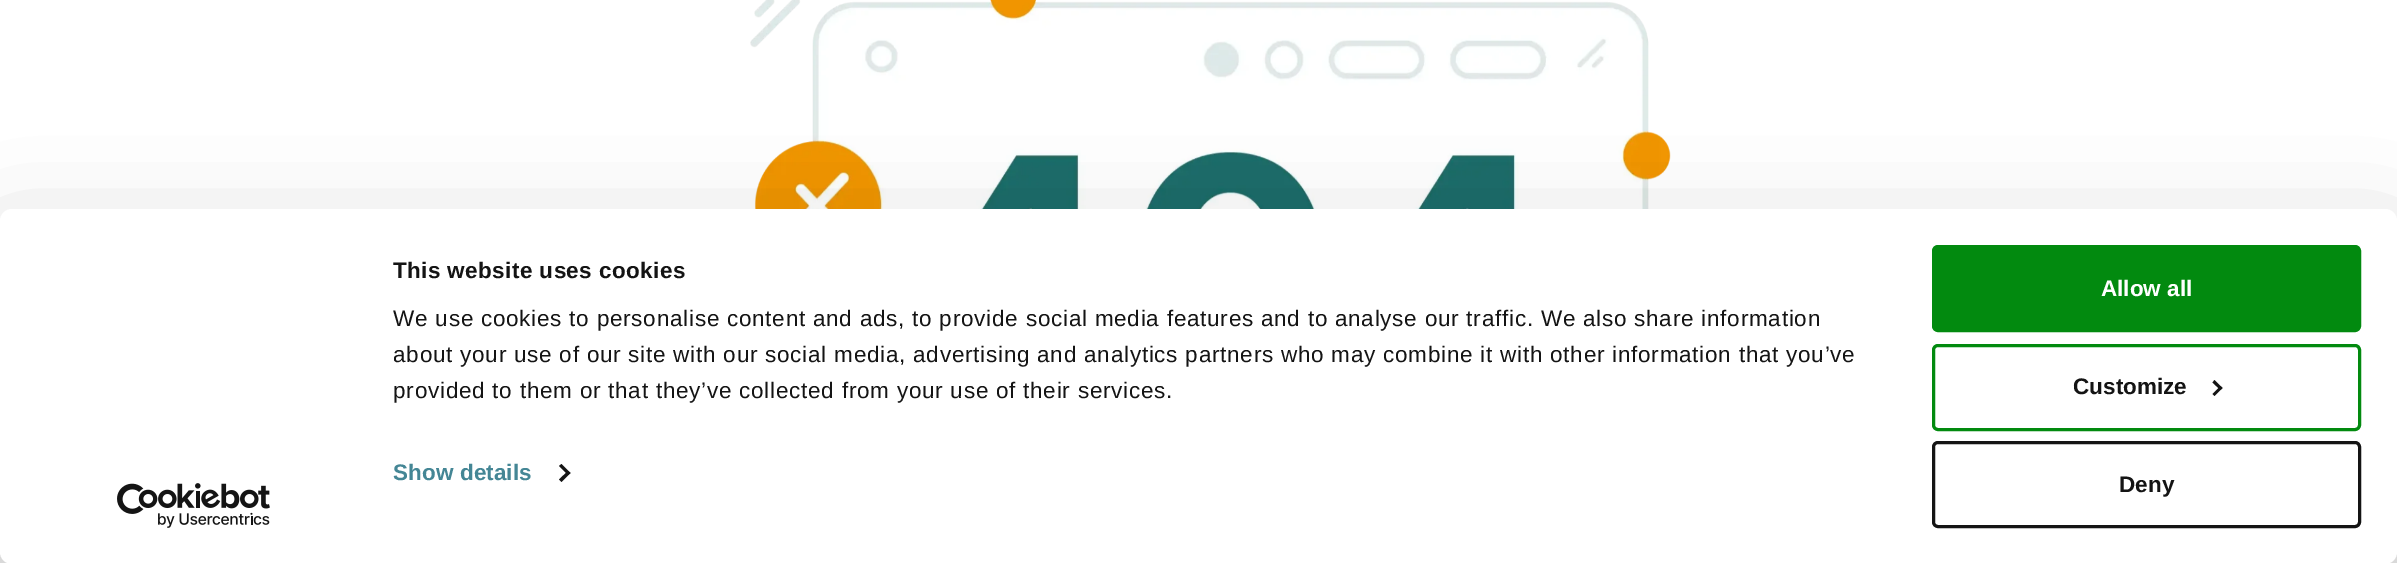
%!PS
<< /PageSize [2397 563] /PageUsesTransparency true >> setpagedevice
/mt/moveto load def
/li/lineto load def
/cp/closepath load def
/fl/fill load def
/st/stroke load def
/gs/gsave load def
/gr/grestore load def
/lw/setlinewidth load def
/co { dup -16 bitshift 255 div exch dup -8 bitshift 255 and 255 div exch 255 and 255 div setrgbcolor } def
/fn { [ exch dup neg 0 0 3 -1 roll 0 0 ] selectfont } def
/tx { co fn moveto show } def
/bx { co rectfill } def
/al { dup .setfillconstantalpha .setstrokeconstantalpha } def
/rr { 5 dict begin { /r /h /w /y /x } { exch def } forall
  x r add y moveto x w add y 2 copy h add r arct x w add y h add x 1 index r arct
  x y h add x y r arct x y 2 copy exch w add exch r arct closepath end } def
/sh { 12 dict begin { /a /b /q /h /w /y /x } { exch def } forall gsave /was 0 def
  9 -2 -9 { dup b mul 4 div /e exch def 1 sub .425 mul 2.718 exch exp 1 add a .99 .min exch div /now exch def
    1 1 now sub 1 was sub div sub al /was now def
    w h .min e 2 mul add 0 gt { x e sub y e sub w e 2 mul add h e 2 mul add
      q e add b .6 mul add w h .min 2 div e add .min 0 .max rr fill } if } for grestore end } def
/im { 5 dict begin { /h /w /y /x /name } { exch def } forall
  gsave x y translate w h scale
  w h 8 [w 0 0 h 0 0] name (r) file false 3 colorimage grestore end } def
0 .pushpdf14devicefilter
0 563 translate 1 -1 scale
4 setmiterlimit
0 0 2397 563 16#FFFFFF bx
(media/1.raw) 750 0 921 209 im
16#000000 co
0 254 2397 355 12 52.5 .3 sh
16#FFFFFF co
0 209 2397 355 12 rr fl
16#141414 co
561.5 464 mt 570.5 473 li 568 475 li 559 466 li cp fl
568 471 mt 570.5 473 li 561.5 482 li 559 479.5 li cp fl
16#028A0F co
1933.5 246.5 426 84 4.5 rr gs fl gr
3 lw
st
1933.5 345.5 426 84 4.5 rr st
16#141414 co
2214.5 380 mt 2222.5 388 li 2220.5 390 li 2212.5 382.5 li cp fl
2220.5 386 mt 2222.5 388 li 2214.5 396 li 2212.5 394 li cp fl
1933.5 442.5 426 84 4.5 rr st
(media/2.raw) 117 483 153 45 im
/LiberationSans-Bold 22.5 fn
393 278 mt .4 0 (This website uses cookies) ashow
/LiberationSans-Regular 22.5 fn
393 326 mt .75 0 (We use cookies to personalise content and ads, to provide social media features and to analyse our traffic. We also share information) ashow
393 362 mt .75 0 (about your use of our site with our social media, advertising and analytics partners who may combine it with other information that you’ve) ashow
393 398 mt .75 0 (provided to them or that they’ve collected from your use of their services.) ashow
/LiberationSans-Bold 22.5 fn
16#448695 co
393 480 mt .1 0 (Show details) ashow
(Allow all) 2101 296 /LiberationSans-Bold 22.5 16#FFFFFF tx
(Customize) 2073 394 /LiberationSans-Bold 22.5 16#141414 tx
(Deny) 2119 492 /LiberationSans-Bold 22.5 16#141414 tx
.poppdf14devicefilter showpage
